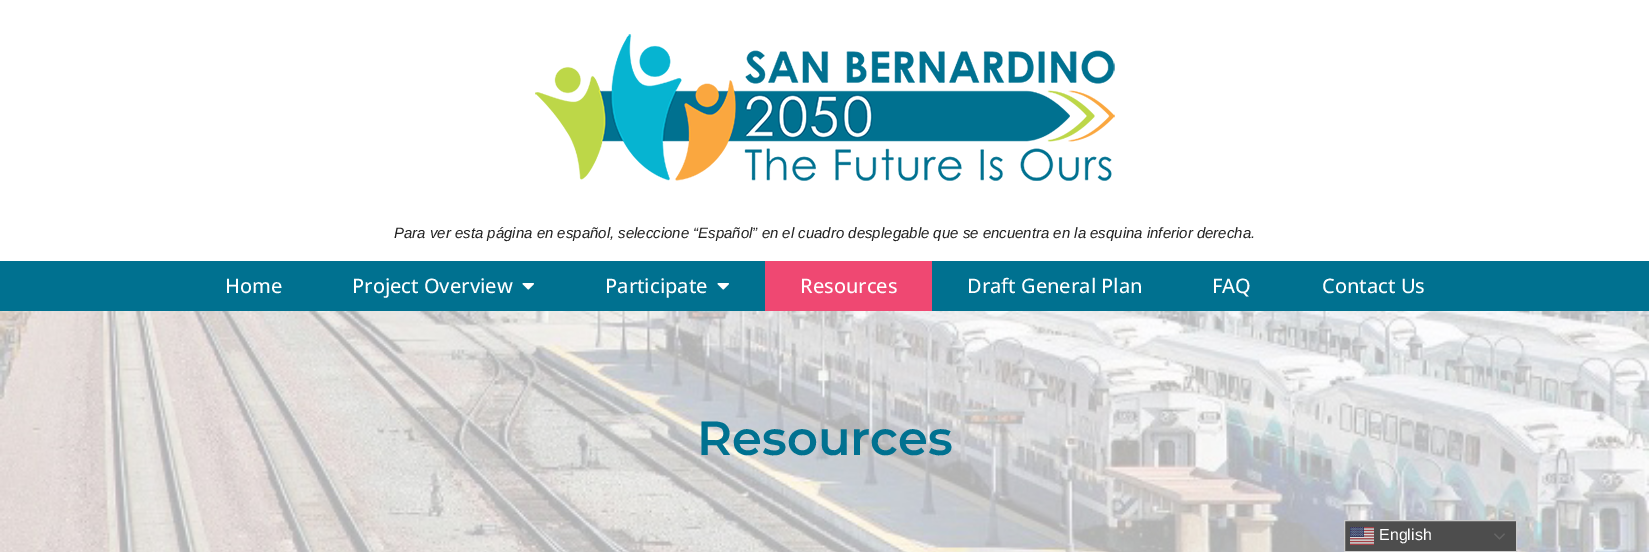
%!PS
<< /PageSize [1649 552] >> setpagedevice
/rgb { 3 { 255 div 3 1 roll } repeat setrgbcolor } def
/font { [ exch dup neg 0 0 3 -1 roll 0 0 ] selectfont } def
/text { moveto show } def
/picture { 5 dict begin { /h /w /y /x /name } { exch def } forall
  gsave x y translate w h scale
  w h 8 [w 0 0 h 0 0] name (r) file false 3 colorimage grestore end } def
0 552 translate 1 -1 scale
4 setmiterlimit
255 255 255 rgb
0 0 1649 552 rectfill
(img_01.rgb) 535 34 580 147 picture
0 113 144 rgb
0 261 1649 50 rectfill
(img_02.rgb) 522 283 12 7 picture
(img_02.rgb) 717 283 12 7 picture
239 72 114 rgb
765 261 167 50 rectfill
(img_03.rgb) 0 311 1649 241 picture
77 77 77 rgb
1344.5 520.5 moveto 172 0 rlineto 0 31 rlineto -172 0 rlineto closepath gsave fill grestore
204 204 204 rgb
stroke
(img_04.rgb) 1350 527 24 18 picture
(img_05.rgb) 1494 533 11 7 picture
/LiberationSans-Italic 15 font
34 34 34 rgb
(Para ver esta página en español, seleccione “Español” en el cuadro desplegable que se encuentra en la esquina inferior derecha.) 394 238 text
/OpenSans-Medium 20 font
255 255 255 rgb
(Home) 225 293 text
(Project Overview) 352 293 text
(Participate) 605 293 text
(Resources) 800 293 text
(Draft General Plan) 967 293 text
(FAQ) 1212 293 text
(Contact Us) 1322 293 text
/Montserrat-SemiBold 48 font
0 113 144 rgb
(Resources) 697 455 text
/LiberationSans-Regular 16 font
255 255 255 rgb
(English) 1379 540 text
showpage
